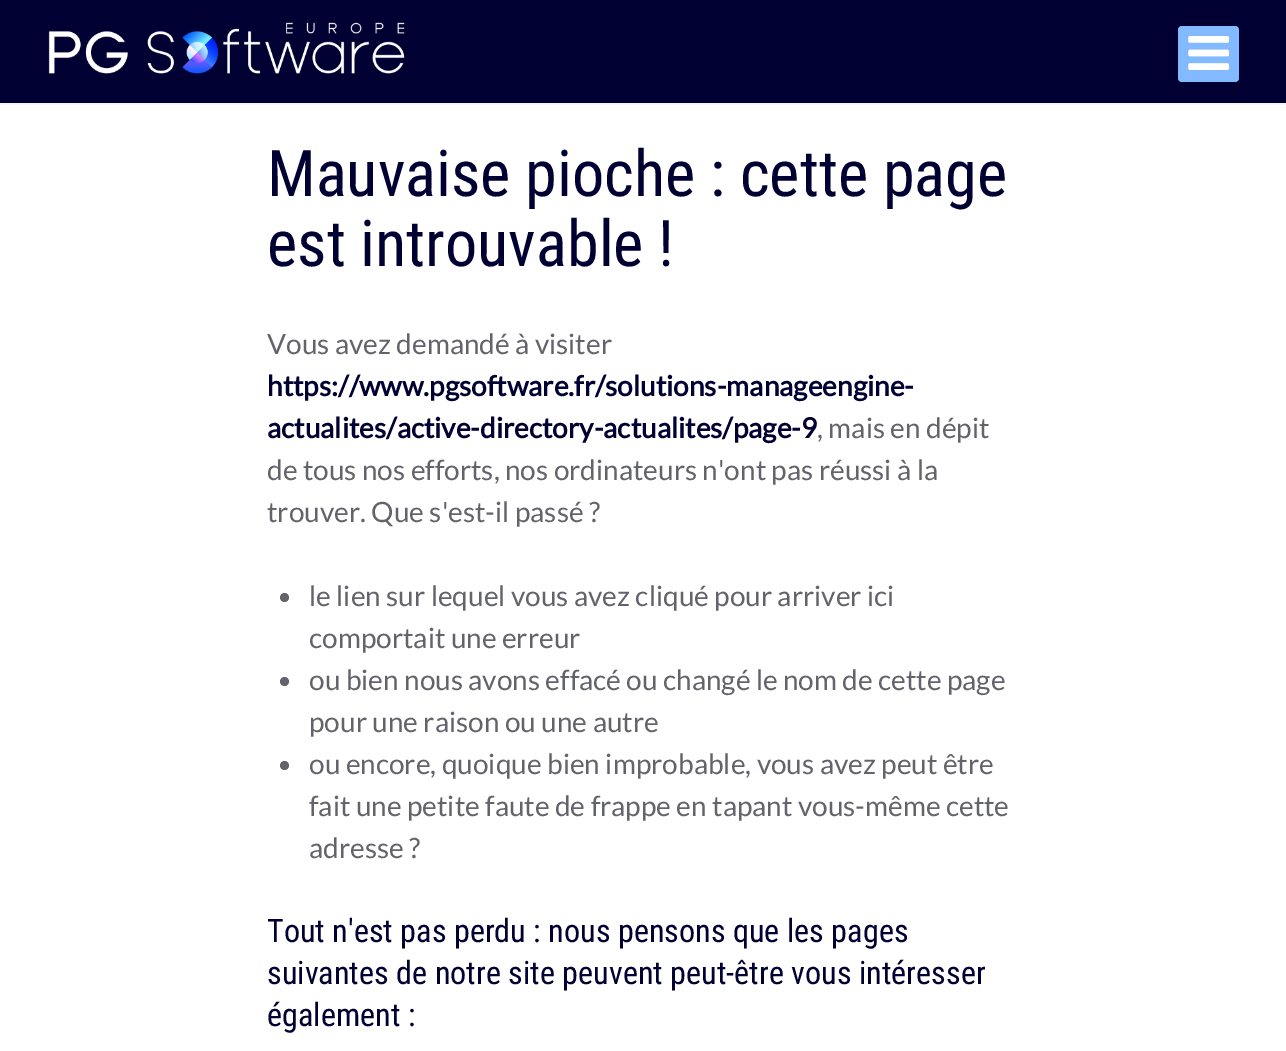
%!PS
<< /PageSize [1286 1051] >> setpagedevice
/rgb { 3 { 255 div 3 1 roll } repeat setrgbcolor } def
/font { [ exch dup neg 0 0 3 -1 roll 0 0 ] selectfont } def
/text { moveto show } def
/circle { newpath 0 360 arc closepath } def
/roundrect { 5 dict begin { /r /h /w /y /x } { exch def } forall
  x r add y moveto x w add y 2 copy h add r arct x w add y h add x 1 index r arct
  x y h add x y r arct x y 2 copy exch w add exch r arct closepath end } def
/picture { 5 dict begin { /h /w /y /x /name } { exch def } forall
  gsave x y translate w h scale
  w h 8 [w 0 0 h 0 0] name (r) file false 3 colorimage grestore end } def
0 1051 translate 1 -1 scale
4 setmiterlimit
255 255 255 rgb
0 0 1286 1051 rectfill
0 0 50 rgb
0 0 1286 103 rectfill
245 245 245 rgb
0 103 1286 2 rectfill
(img_01.rgb) 48 22 357 52 picture
130 185 255 rgb
1178 26 61 56 4 roundrect fill
(img_02.rgb) 1188 36 42 34 picture
99 99 107 rgb
284.5 597.5 4.5 circle fill
284.5 681.5 4.5 circle fill
284.5 765.5 4.5 circle fill
/RobotoCondensed-Regular 64.4 font
0 0 50 rgb
(Mauvaise pioche : cette page) 267 196 text
(est introuvable !) 267 266 text
/Lato-Regular 28 font
99 99 107 rgb
(Vous avez demandé à visiter) 267 354 text
/Lato-Bold 28 font
0 0 50 rgb
(https://www.pgsoftware.fr/solutions-manageengine-) 267 396 text
(actualites/active-directory-actualites/page-9) 267 438 text
/Lato-Regular 28 font
99 99 107 rgb
(, mais en dépit) 817 438 text
(de tous nos efforts, nos ordinateurs n'ont pas réussi à la) 267 480 text
(trouver. Que s'est-il passé ?) 267 522 text
(le lien sur lequel vous avez cliqué pour arriver ici) 309 606 text
(comportait une erreur) 309 648 text
(ou bien nous avons effacé ou changé le nom de cette page) 309 690 text
(pour une raison ou une autre) 309 732 text
(ou encore, quoique bien improbable, vous avez peut être) 309 774 text
(fait une petite faute de frappe en tapant vous-même cette) 309 816 text
(adresse ?) 309 858 text
/RobotoCondensed-Regular 32.2 font
0 0 50 rgb
(Tout n'est pas perdu : nous pensons que les pages) 267 942 text
(suivantes de notre site peuvent peut-être vous intéresser) 267 984 text
(également :) 267 1026 text
showpage
